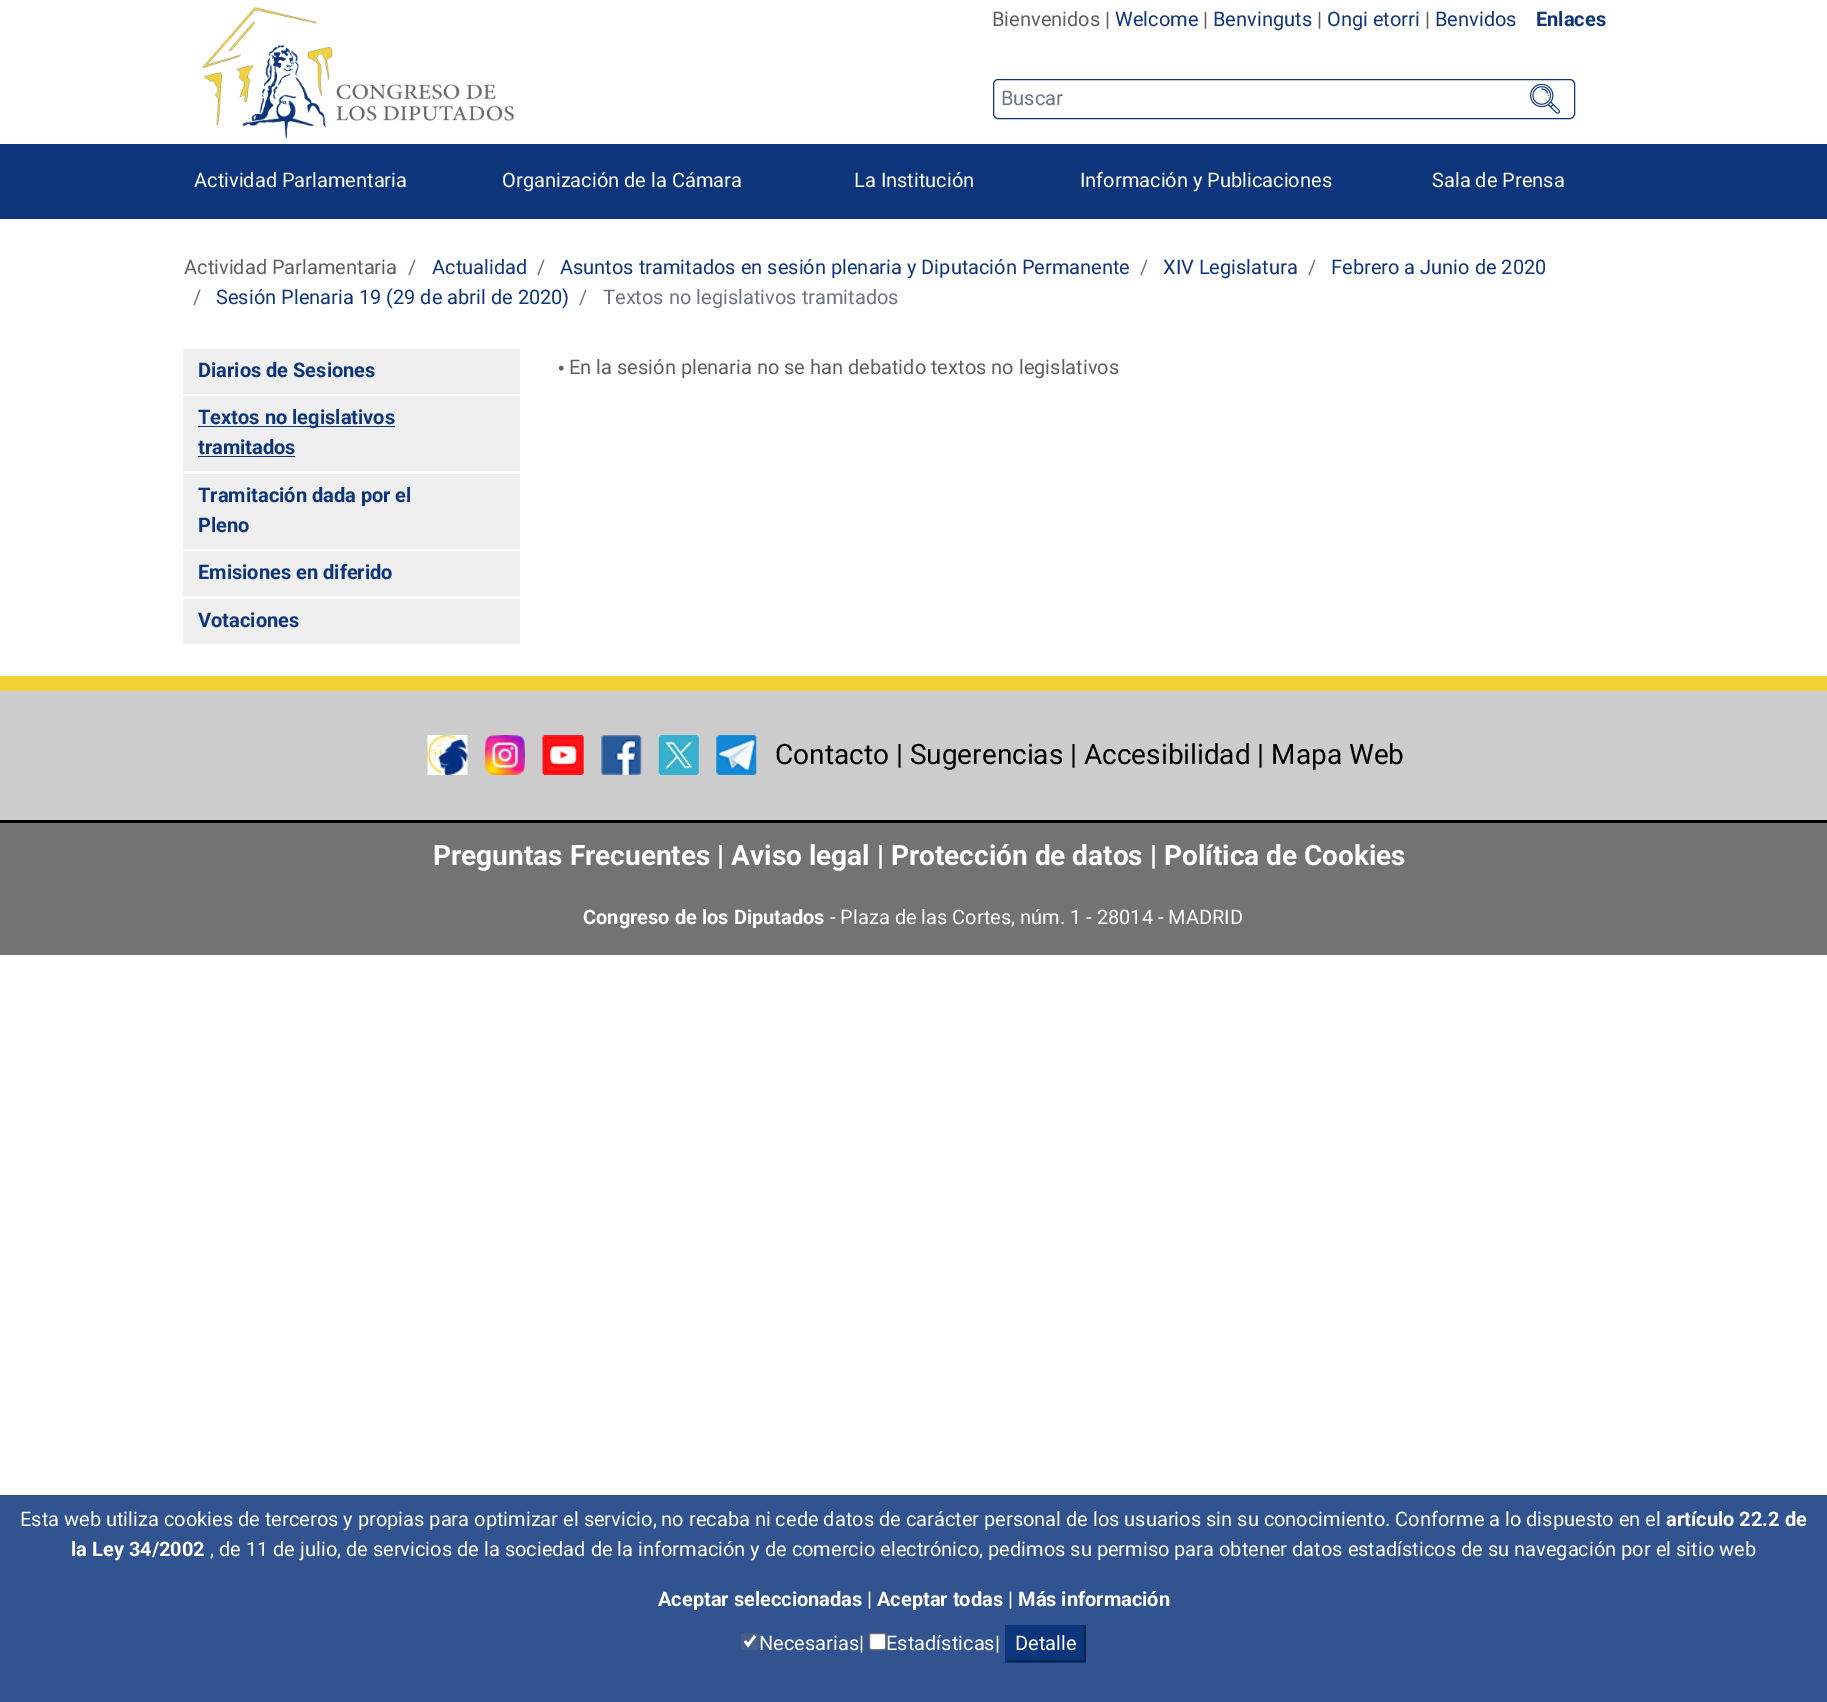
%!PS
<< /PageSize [1827 1702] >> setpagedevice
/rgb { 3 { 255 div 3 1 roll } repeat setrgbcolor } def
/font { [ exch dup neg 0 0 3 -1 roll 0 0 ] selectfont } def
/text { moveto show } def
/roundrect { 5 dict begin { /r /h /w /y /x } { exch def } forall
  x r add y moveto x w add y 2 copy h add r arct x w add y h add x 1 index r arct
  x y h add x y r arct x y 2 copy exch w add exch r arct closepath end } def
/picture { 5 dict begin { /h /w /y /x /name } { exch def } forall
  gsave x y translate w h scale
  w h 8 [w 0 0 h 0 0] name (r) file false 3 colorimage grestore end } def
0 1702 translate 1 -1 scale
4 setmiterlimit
255 255 255 rgb
0 0 1827 1702 rectfill
(img_01.rgb) 202 7 312 132 picture
13 53 123 rgb
993.5 79.5 581 39 4.5 roundrect stroke
(img_02.rgb) 1530 84 30 30 picture
0 144 1827 75 rectfill
239 239 239 rgb
183 349 337 45 rectfill
183 396 337 75 rectfill
13 53 123 rgb
198 426 197 1 rectfill
198 456 97 1 rectfill
239 239 239 rgb
183 474 337 75 rectfill
183 551 337 45 rectfill
183 599 337 45 rectfill
(img_03.rgb) 558 365 6 6 picture
115 115 115 rgb
0 823 1827 132 rectfill
241 209 54 rgb
0 676 1827 15 rectfill
204 204 204 rgb
0 691 1827 129 rectfill
0 0 0 rgb
0 820 1827 3 rectfill
(img_04.rgb) 427 735 41 40 picture
(img_05.rgb) 485 735 40 40 picture
(img_06.rgb) 542 735 42 40 picture
(img_07.rgb) 601 735 41 40 picture
(img_08.rgb) 658 735 41 40 picture
(img_09.rgb) 716 735 41 40 picture
49 83 143 rgb
0 1495 1827 207 rectfill
70 94 136 rgb
741 1633 18 17 2.5 roundrect fill
255 255 255 rgb
2.8 setlinewidth
745 1641 moveto 3 4 rlineto 7 -9 rlineto stroke
869.5 1633.5 16 16 2 roundrect gsave fill grestore
118 118 118 rgb
1 setlinewidth
stroke
13 53 123 rgb
1005 1625 81 38 rectfill
9 35 82 rgb
1086 1625 moveto 0 37.5 rlineto -2 -2.5 rlineto 0 -32.5 rlineto closepath fill
1086 1662 moveto -81 0 rlineto 3 -2 rlineto 76 0 rlineto closepath fill
13 53 123 rgb
1005 1662.5 moveto 0 -37.5 rlineto 2.5 2.5 rlineto 0 32.5 rlineto closepath fill
/Roboto-Regular 20 font
94 94 94 rgb
(Bienvenidos |) 992 26 text
13 53 123 rgb
(Welcome) 1115 26 text
94 94 94 rgb
(|) 1203 26 text
13 53 123 rgb
(Benvinguts) 1213 26 text
94 94 94 rgb
(|) 1317 26 text
13 53 123 rgb
(Ongi etorri) 1327 26 text
94 94 94 rgb
(|) 1425 26 text
13 53 123 rgb
(Benvidos) 1435 26 text
/Roboto-Bold 20 font
(Enlaces) 1536 26 text
/Roboto-Regular 20 font
108 117 125 rgb
(Buscar) 1001 105 text
255 255 255 rgb
(Actividad Parlamentaria) 194 187 text
(Organización de la Cámara) 502 187 text
(La Institución) 854 187 text
(Información y Publicaciones) 1080 187 text
(Sala de Prensa) 1432 187 text
94 94 94 rgb
(Actividad Parlamentaria) 184 274 text
108 117 125 rgb
(/) 408 274 text
13 53 123 rgb
(Actualidad) 432 274 text
108 117 125 rgb
(/) 537 274 text
13 53 123 rgb
(Asuntos tramitados en sesión plenaria y Diputación Permanente) 560 274 text
108 117 125 rgb
(/) 1140 274 text
13 53 123 rgb
(XIV Legislatura) 1163 274 text
108 117 125 rgb
(/) 1308 274 text
13 53 123 rgb
(Febrero a Junio de 2020) 1331 274 text
108 117 125 rgb
(/) 193 304 text
13 53 123 rgb
(Sesión Plenaria 19 \(29 de abril de 2020\)) 216 304 text
108 117 125 rgb
(/) 579 304 text
(Textos no legislativos tramitados) 603 304 text
/Roboto-Bold 20 font
13 53 123 rgb
(Diarios de Sesiones) 198 377 text
(Textos no legislativos) 198 424 text
(tramitados) 198 454 text
(Tramitación dada por el) 198 502 text
(Pleno) 198 532 text
(Emisiones en diferido) 198 579 text
(Votaciones) 198 627 text
/Roboto-Regular 20 font
94 94 94 rgb
(En la sesión plenaria no se han debatido textos no legislativos) 569 374 text
/Roboto-Regular 28 font
0 0 0 rgb
(Contacto | Sugerencias | Accesibilidad | Mapa Web) 775 764 text
/Roboto-Bold 28 font
255 255 255 rgb
(Preguntas Frecuentes | Aviso legal | Protección de datos | Política de Cookies) 433 865 text
/Roboto-Bold 20 font
(Congreso de los Diputados) 583 924 text
/Roboto-Regular 20 font
(- Plaza de las Cortes, núm. 1 - 28014 - MADRID) 830 924 text
(Esta web utiliza cookies de terceros y propias para optimizar el servicio, no recaba ni cede datos de carácter personal de los usuarios sin su conocimiento. Conforme a lo dispuesto en el) 20 1526 text
/Roboto-Bold 20 font
(artículo 22.2 de) 1666 1526 text
(la Ley 34/2002) 71 1556 text
/Roboto-Regular 20 font
(, de 11 de julio, de servicios de la sociedad de la información y de comercio electrónico, pedimos su permiso para obtener datos estadísticos de su navegación por el sitio web) 210 1556 text
/Roboto-Bold 20 font
(Aceptar seleccionadas) 658 1606 text
/Roboto-Regular 20 font
(|) 867 1606 text
/Roboto-Bold 20 font
(Aceptar todas) 877 1606 text
/Roboto-Regular 20 font
(|) 1008 1606 text
/Roboto-Bold 20 font
(Más información) 1018 1606 text
/Roboto-Regular 20 font
(Necesarias|) 759 1650 text
(Estadísticas|) 886 1650 text
(Detalle) 1015 1650 text
showpage
